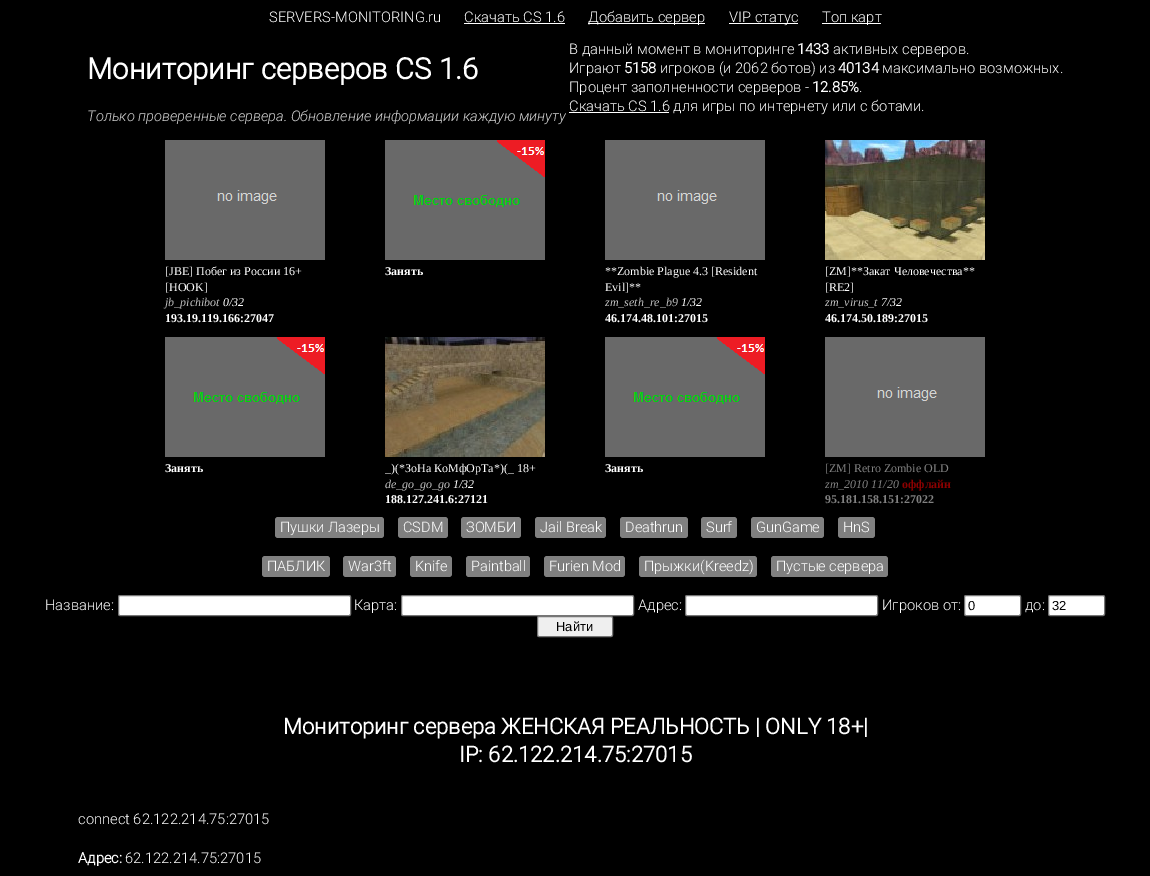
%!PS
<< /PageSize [1150 876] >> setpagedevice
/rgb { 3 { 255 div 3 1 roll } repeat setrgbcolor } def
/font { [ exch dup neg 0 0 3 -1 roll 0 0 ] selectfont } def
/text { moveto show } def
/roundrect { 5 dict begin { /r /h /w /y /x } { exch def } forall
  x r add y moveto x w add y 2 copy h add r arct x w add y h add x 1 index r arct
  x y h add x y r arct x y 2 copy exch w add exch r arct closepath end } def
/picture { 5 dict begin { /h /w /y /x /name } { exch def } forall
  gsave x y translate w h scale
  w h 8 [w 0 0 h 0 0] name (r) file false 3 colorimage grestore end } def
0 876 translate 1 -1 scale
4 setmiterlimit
0 0 0 rgb
0 0 1150 876 rectfill
255 255 255 rgb
464 23 101 1 rectfill
588 23 117 1 rectfill
729 23 69 1 rectfill
822 23 59 1 rectfill
569 112 100 1 rectfill
(img_01.rgb) 165 140 160 120 picture
(img_02.rgb) 385 140 160 120 picture
(img_01.rgb) 605 140 160 120 picture
(img_03.rgb) 825 140 160 120 picture
(img_02.rgb) 165 337 160 120 picture
(img_04.rgb) 385 337 160 120 picture
(img_02.rgb) 605 337 160 120 picture
(img_01.rgb) 825 337 160 120 picture
128 128 128 rgb
275 517 109 21 3 roundrect fill
398 517 50 21 3 roundrect fill
461 517 60 21 3 roundrect fill
535 517 71 21 3 roundrect fill
620 517 68 21 3 roundrect fill
701 517 36 21 3 roundrect fill
751 517 73 21 3 roundrect fill
838 517 37 21 3 roundrect fill
262 556 68 21 3 roundrect fill
343 556 53 21 3 roundrect fill
410 556 42 21 3 roundrect fill
466 556 64 21 3 roundrect fill
544 556 81 21 3 roundrect fill
639 556 118 21 3 roundrect fill
771 556 117 21 3 roundrect fill
255 255 255 rgb
118.5 595.5 232 20 1.5 roundrect gsave fill grestore
118 118 118 rgb
stroke
255 255 255 rgb
401.5 595.5 232 20 1.5 roundrect gsave fill grestore
118 118 118 rgb
stroke
255 255 255 rgb
685.5 595.5 192 20 1.5 roundrect gsave fill grestore
118 118 118 rgb
stroke
255 255 255 rgb
964.5 595.5 56 20 1.5 roundrect gsave fill grestore
118 118 118 rgb
stroke
255 255 255 rgb
1048.5 595.5 56 20 1.5 roundrect gsave fill grestore
118 118 118 rgb
stroke
239 239 239 rgb
537.5 616.5 75 20 1.5 roundrect gsave fill grestore
118 118 118 rgb
stroke
/Roboto-Light 14.7 font
255 255 255 rgb
(SERVERS-MONITORING.ru) 269 22 text
(Скачать CS 1.6) 464 22 text
(Добавить сервер) 588 22 text
(VIP статус) 729 22 text
(Топ карт) 822 22 text
/Roboto-Bold 29.3 font
(Мониторинг серверов CS 1.6) 87 79 text
/Roboto-LightItalic 14.7 font
211 211 211 rgb
(Только проверенные сервера. Обновление информации каждую минуту) 87 121 text
/Roboto-Light 14.7 font
255 255 255 rgb
(В данный момент в мониторинге) 569 54 text
/Roboto-Bold 14.7 font
(1433) 797 54 text
/Roboto-Light 14.7 font
(активных серверов.) 833 54 text
(Играют) 569 73 text
/Roboto-Bold 14.7 font
(5158) 624 73 text
/Roboto-Light 14.7 font
(игроков \(и 2062 ботов\) из) 660 73 text
/Roboto-Bold 14.7 font
(40134) 838 73 text
/Roboto-Light 14.7 font
(максимально возможных.) 882 73 text
(Процент заполненности серверов -) 569 92 text
/Roboto-Bold 14.7 font
(12.85%) 812 92 text
/Roboto-Light 14.7 font
(.) 859 92 text
(Скачать CS 1.6 для игры по интернету или с ботами.) 569 111 text
/LiberationSerif-Regular 12 font
([JBE] Побег из России 16+) 165 275 text
([HOOK]) 165 291 text
/LiberationSerif-Italic 12 font
192 192 192 rgb
(jb_pichibot) 165 306 text
255 255 255 rgb
(0/32) 223 306 text
/LiberationSerif-Bold 12 font
(193.19.119.166:27047) 165 322 text
(Занять) 385 275 text
/LiberationSerif-Regular 12 font
(**Zombie Plague 4.3 [Resident) 605 275 text
(Evil]**) 605 291 text
/LiberationSerif-Italic 12 font
192 192 192 rgb
(zm_seth_re_b9) 605 306 text
255 255 255 rgb
(1/32) 681 306 text
/LiberationSerif-Bold 12 font
(46.174.48.101:27015) 605 322 text
/LiberationSerif-Regular 12 font
([ZM]**Закат Человечества**) 825 275 text
([RE2]) 825 291 text
/LiberationSerif-Italic 12 font
192 192 192 rgb
(zm_virus_t) 825 306 text
255 255 255 rgb
(7/32) 881 306 text
/LiberationSerif-Bold 12 font
(46.174.50.189:27015) 825 322 text
(Занять) 165 472 text
/LiberationSerif-Regular 12 font
(_\)\(*ЗоНа КоМфОрТа*\)\(_ 18+) 385 472 text
/LiberationSerif-Italic 12 font
192 192 192 rgb
(de_go_go_go) 385 488 text
255 255 255 rgb
(1/32) 453 488 text
/LiberationSerif-Bold 12 font
(188.127.241.6:27121) 385 503 text
(Занять) 605 472 text
/LiberationSerif-Regular 12 font
128 128 128 rgb
([ZM] Retro Zombie OLD) 825 472 text
/LiberationSerif-Italic 12 font
(zm_2010 11/20) 825 488 text
/LiberationSerif-Bold 12 font
139 0 0 rgb
(оффлайн) 902 488 text
128 128 128 rgb
(95.181.158.151:27022) 825 503 text
/Roboto-Light 14.5 font
255 255 255 rgb
(Пушки Лазеры) 280 532 text
(CSDM) 403 532 text
(ЗОМБИ) 466 532 text
(Jail Break) 540 532 text
(Deathrun) 625 532 text
(Surf) 706 532 text
(GunGame) 756 532 text
(HnS) 843 532 text
(ПАБЛИК) 267 571 text
(War3ft) 348 571 text
(Knife) 415 571 text
(Paintball) 471 571 text
(Furien Mod) 549 571 text
(Прыжки\(Kreedz\)) 644 571 text
(Пустые сервера) 776 571 text
/Roboto-Light 14.7 font
(Название:) 45 610 text
(Карта:) 354 610 text
(Адрес:) 638 610 text
(Игроков от:) 882 610 text
/LiberationSans-Regular 13 font
0 0 0 rgb
(0) 968 610 text
/Roboto-Light 14.7 font
255 255 255 rgb
(до:) 1025 610 text
/LiberationSans-Regular 13 font
0 0 0 rgb
(32) 1052 610 text
(Найти) 556 631 text
/Roboto-Bold 22 font
255 255 255 rgb
(Мониторинг сервера ЖЕНСКАЯ РЕАЛЬНОСТЬ | ONLY 18+|) 283 734 text
(IP: 62.122.214.75:27015) 459 762 text
/Roboto-Light 14.7 font
(connect 62.122.214.75:27015) 78 824 text
/Roboto-Bold 14.7 font
(Адрес:) 78 863 text
/Roboto-Light 14.7 font
(62.122.214.75:27015) 125 863 text
showpage
